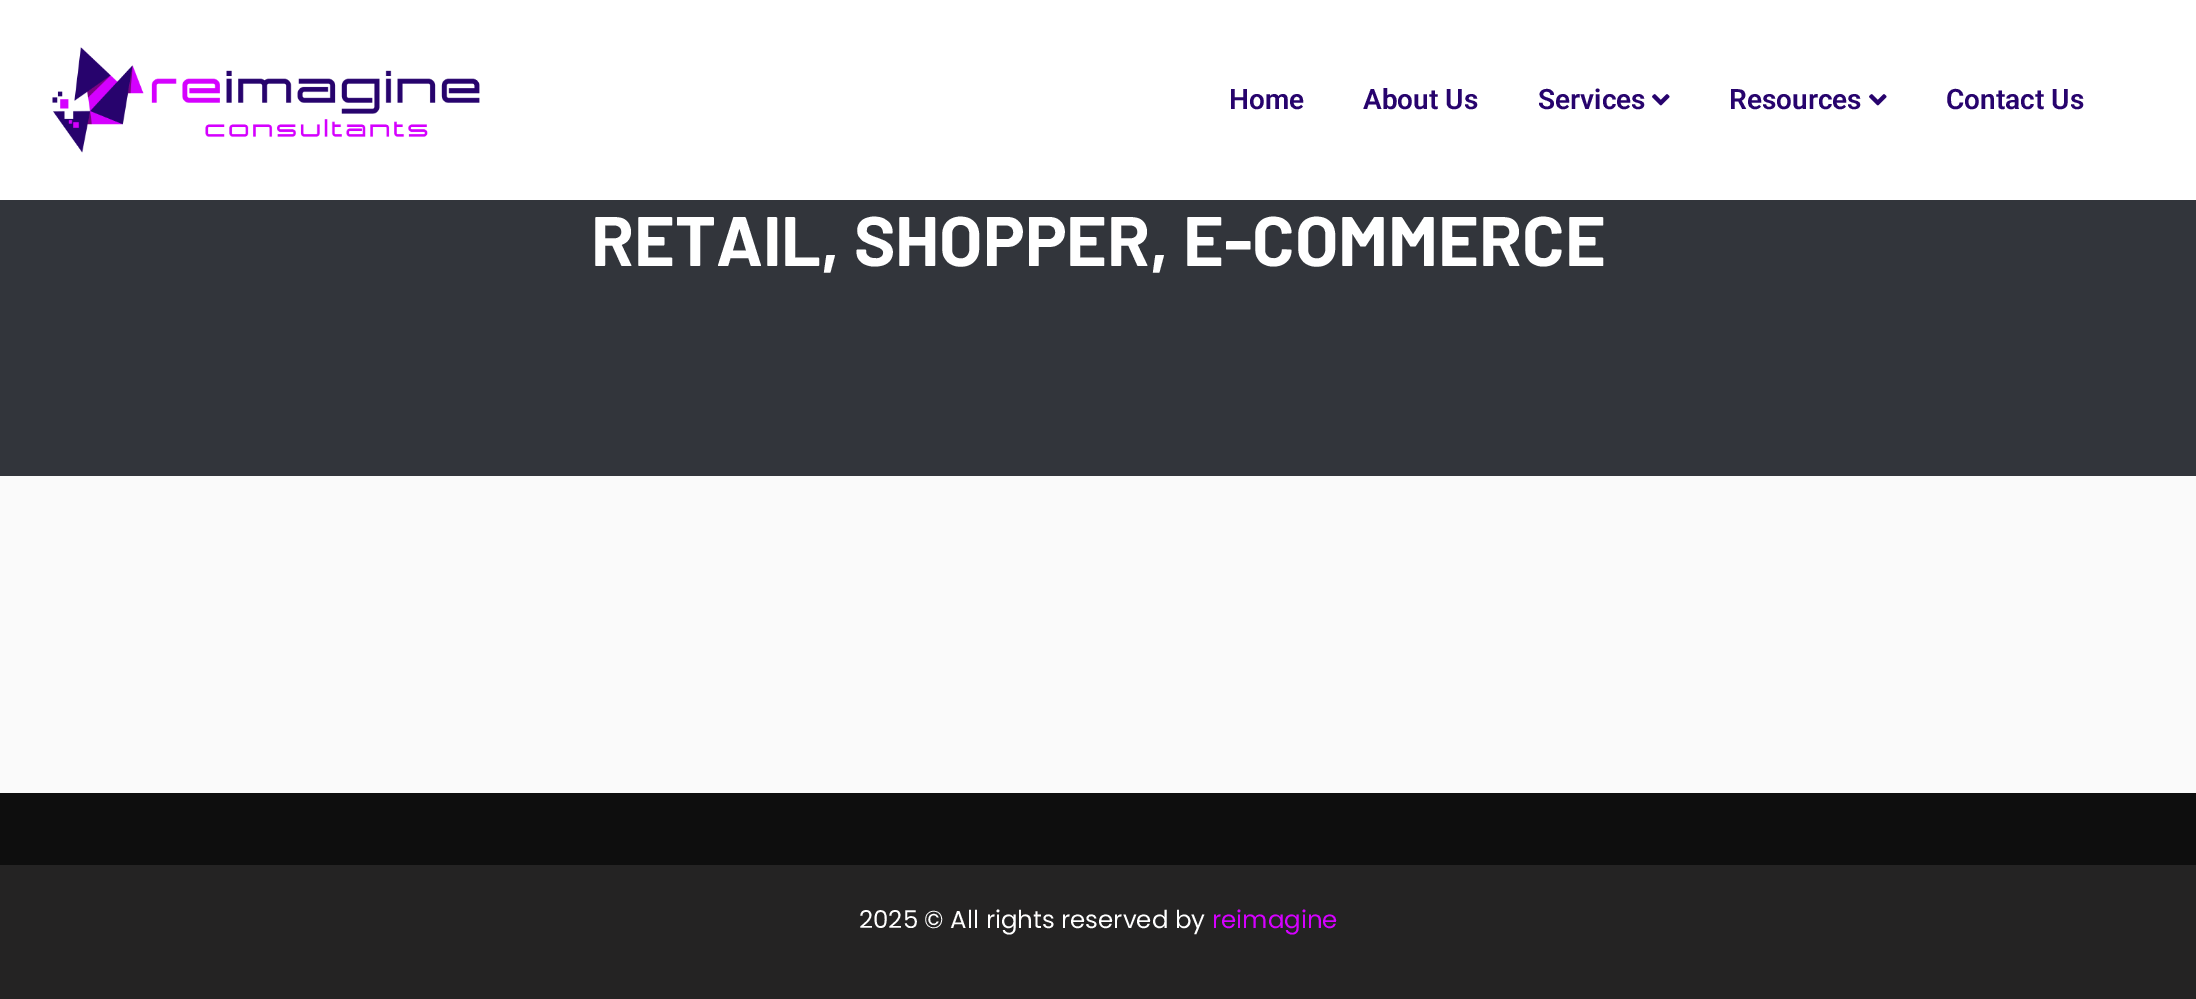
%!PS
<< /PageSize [2196 999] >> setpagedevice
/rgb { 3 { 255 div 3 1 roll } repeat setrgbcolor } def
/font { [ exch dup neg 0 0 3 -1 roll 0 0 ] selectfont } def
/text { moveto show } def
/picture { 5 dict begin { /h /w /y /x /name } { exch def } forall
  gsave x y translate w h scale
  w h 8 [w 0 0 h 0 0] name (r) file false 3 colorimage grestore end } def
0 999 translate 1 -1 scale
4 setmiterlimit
14 14 14 rgb
0 0 2196 999 rectfill
255 255 255 rgb
0 0 2196 200 rectfill
(img_01.rgb) 52 47 428 106 picture
(img_02.rgb) 1652 94 18 12 picture
(img_02.rgb) 1869 94 18 12 picture
50 53 59 rgb
0 200 2196 276 rectfill
250 250 250 rgb
0 476 2196 317 rectfill
36 35 35 rgb
0 865 2196 134 rectfill
/Roboto-SemiBold 28 font
39 3 109 rgb
(Home) 1229 109 text
(About Us) 1363 109 text
(Services) 1538 109 text
(Resources) 1729 109 text
(Contact Us) 1946 109 text
/Barlow-Bold 70 font
255 255 255 rgb
(RETAIL, SHOPPER, E-COMMERCE) 591 266 text
/Poppins-Regular 24.5 font
(2025 © All rights reserved by) 859 928 text
213 0 255 rgb
(reimagine) 1212 928 text
showpage
